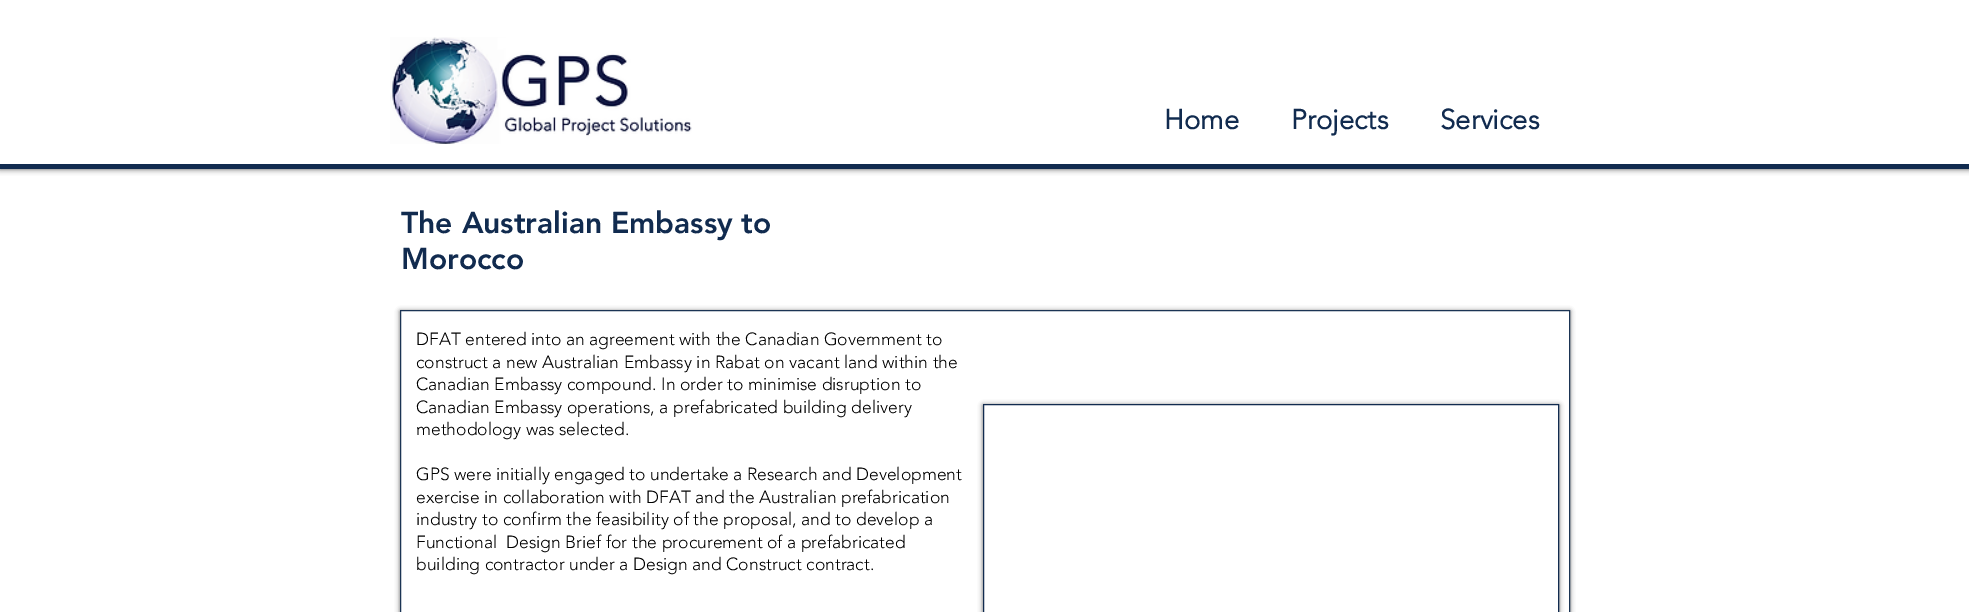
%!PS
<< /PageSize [1969 612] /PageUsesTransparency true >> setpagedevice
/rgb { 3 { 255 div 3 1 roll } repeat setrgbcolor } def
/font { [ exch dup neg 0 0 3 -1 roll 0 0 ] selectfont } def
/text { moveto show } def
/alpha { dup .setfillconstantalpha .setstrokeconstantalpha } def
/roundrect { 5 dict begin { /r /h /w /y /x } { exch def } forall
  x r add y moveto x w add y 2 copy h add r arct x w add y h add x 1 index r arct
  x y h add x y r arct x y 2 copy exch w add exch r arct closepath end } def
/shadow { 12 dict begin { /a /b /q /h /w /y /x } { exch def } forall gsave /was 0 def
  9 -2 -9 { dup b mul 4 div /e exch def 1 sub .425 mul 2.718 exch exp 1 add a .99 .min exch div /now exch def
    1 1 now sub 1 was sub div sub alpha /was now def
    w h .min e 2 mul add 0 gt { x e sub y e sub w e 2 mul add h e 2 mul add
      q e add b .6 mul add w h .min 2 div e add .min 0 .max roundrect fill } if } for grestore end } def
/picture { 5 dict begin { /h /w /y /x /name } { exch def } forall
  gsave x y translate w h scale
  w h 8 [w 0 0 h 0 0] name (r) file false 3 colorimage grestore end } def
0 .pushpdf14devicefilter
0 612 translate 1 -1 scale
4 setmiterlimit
255 255 255 rgb
0 0 1969 612 rectfill
0 0 0 rgb
0 0 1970 169 0 3 0.7 shadow
255 255 255 rgb
0 0 1969 164 rectfill
17 43 79 rgb
0 164 1969 5 rectfill
(img_01.rgb) 390 37 302 107 picture
gsave
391 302 moveto 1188 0 rlineto 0 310 rlineto -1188 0 rlineto closepath 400 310 moveto 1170 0 rlineto 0 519 rlineto -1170 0 rlineto closepath eoclip newpath
0 0 0 rgb
400 311 1170 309 0 2.5 0.6 shadow
grestore
27 52 84 rgb
400.5 310.5 1169 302 rectstroke
gsave
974 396 moveto 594 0 rlineto 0 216 rlineto -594 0 rlineto closepath 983 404 moveto 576 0 rlineto 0 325 rlineto -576 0 rlineto closepath eoclip newpath
0 0 0 rgb
983 405 576 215 0 2.5 0.6 shadow
grestore
17 43 79 rgb
983.5 404.5 575 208 rectstroke
/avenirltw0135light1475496-Bold 27.5 font
(Home) 1164 129 text
(Projects) 1291 129 text
(Services) 1440 129 text
/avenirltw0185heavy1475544-Black 30 font
(The Australian Embassy to) 401 233 text
(Morocco) 401 269 text
/avenirltw0135light1475496-Light 17.5 font
0 0 0 rgb
(DFAT entered into an agreement with the Canadian Government to) 416 345 text
(construct a new Australian Embassy in Rabat on vacant land within the) 416 368 text
(Canadian Embassy compound. In order to minimise disruption to) 416 390 text
(Canadian Embassy operations, a prefabricated building delivery) 416 413 text
(methodology was selected.) 416 435 text
(GPS were initially engaged to undertake a Research and Development) 416 480 text
(exercise in collaboration with DFAT and the Australian prefabrication) 416 503 text
(industry to confirm the feasibility of the proposal, and to develop a) 416 525 text
(Functional  Design Brief for the procurement of a prefabricated) 416 548 text
(building contractor under a Design and Construct contract.) 416 570 text
.poppdf14devicefilter showpage
